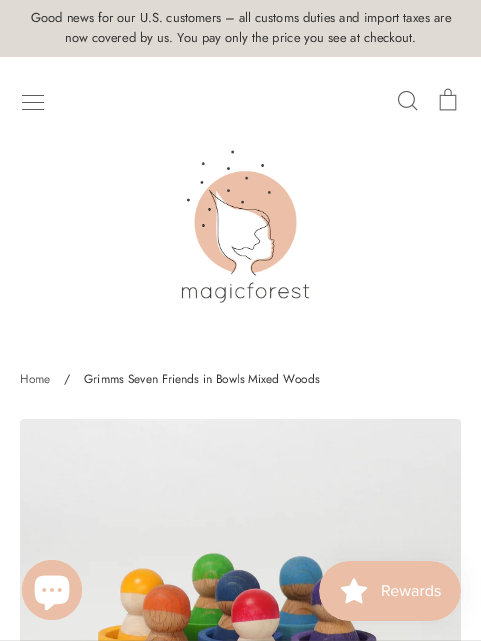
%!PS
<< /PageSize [481 641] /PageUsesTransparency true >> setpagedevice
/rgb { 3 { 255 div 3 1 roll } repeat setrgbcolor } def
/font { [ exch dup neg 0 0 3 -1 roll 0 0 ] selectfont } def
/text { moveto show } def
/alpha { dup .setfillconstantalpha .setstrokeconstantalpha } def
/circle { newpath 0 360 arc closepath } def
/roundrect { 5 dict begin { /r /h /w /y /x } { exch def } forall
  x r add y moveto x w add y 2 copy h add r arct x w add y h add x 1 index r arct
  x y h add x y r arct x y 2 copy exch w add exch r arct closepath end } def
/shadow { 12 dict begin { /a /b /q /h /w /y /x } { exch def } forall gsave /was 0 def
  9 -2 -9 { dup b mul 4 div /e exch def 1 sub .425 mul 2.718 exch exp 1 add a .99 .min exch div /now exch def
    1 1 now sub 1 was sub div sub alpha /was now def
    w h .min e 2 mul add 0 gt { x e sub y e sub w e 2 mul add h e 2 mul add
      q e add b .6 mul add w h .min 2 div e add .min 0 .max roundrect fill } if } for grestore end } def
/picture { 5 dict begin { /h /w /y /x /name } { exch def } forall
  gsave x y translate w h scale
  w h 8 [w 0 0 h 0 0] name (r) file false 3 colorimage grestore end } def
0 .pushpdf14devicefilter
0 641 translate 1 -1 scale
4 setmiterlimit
255 255 255 rgb
0 0 481 641 rectfill
223 218 211 rgb
0 0 481 57 rectfill
92 92 92 rgb
22 95 22 1 rectfill
22 102 22 1 rectfill
22 109 22 1 rectfill
(img_01.rgb) 398 91 20 20 picture
(img_02.rgb) 439 88 18 23 picture
(img_03.rgb) 181 150 129 153 picture
(img_04.rgb) 20 419 441 222 picture
0.15 alpha
0 640 481 1 rectfill
1 alpha
235 191 167 rgb
52 590 30 circle fill
(img_05.rgb) 34 575 36 36 picture
0 0 0 rgb
319 561 142 60 30 12.5 0.05 shadow
(img_06.rgb) 319 561 142 60 picture
/Jost-Regular 13 font
51 51 51 rgb
(Good news for our U.S. customers – all customs duties and import taxes are) 31 22 text
(now covered by us. You pay only the price you see at checkout.) 65 42 text
/Jost-Regular 12 font
92 92 92 rgb
(Home) 20 383 text
51 51 51 rgb
(/) 64 383 text
(Grimms Seven Friends in Bowls Mixed Woods) 84 383 text
.poppdf14devicefilter showpage
